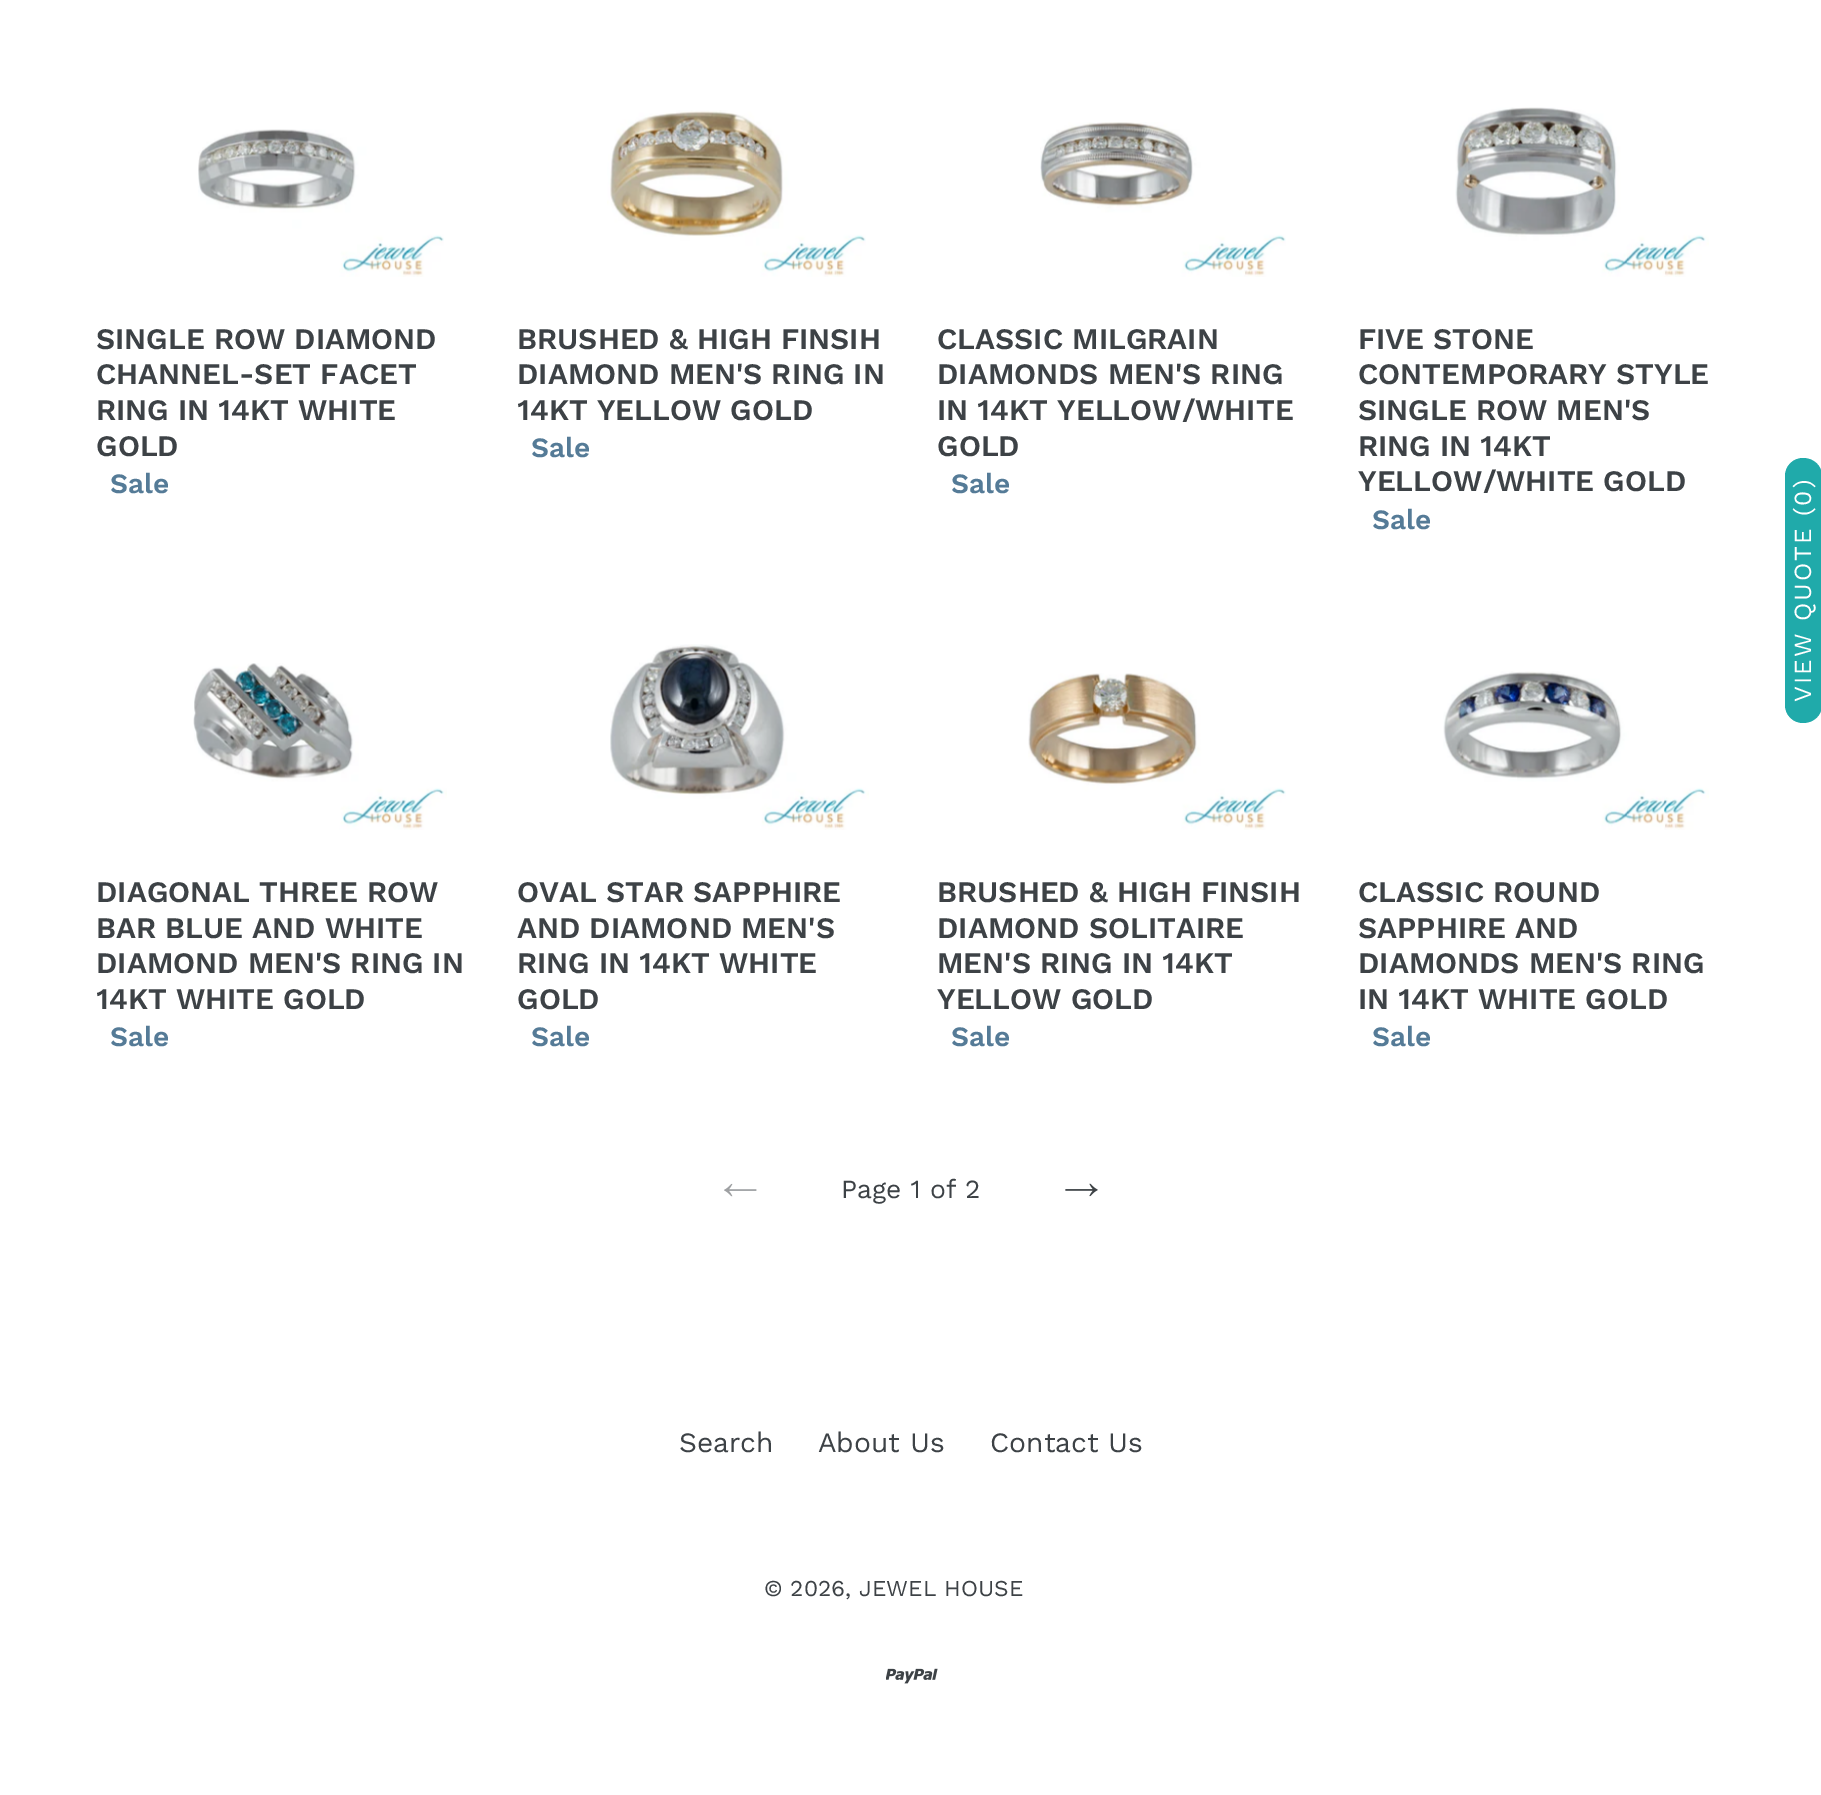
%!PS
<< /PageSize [1821 1795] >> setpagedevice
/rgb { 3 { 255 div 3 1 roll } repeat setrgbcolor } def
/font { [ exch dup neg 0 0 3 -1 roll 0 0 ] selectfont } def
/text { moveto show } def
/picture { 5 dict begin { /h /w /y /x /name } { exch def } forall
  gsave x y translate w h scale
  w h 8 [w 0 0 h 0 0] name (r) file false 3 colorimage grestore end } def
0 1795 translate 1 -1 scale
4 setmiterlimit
255 255 255 rgb
0 0 1821 1795 rectfill
(img_01.rgb) 198 129 246 148 picture
(img_02.rgb) 607 110 259 167 picture
(img_03.rgb) 1040 122 246 155 picture
(img_04.rgb) 1455 107 254 170 picture
(img_05.rgb) 193 663 254 167 picture
(img_06.rgb) 610 644 259 186 picture
(img_07.rgb) 1028 673 258 157 picture
(img_08.rgb) 1443 671 266 159 picture
(img_09.rgb) 724 1183 33 14 picture
(img_10.rgb) 1065 1183 33 14 picture
(img_11.rgb) 886 1668 52 16 picture
32 170 170 rgb
1785 705 moveto 0 -229 rlineto 0 -10 8 -18 18 -18 rcurveto 11 0 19 8 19 18 rcurveto 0 229 rlineto 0 10 -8 18 -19 18 rcurveto -10 0 -18 -8 -18 -18 rcurveto closepath fill
/WorkSans-SemiBold 29.75 font
61 66 70 rgb
(SINGLE ROW DIAMOND) 96 349 text
(CHANNEL-SET FACET) 96 384 text
(RING IN 14KT WHITE) 96 420 text
(GOLD) 96 456 text
/WorkSans-SemiBold 28 font
85 123 151 rgb
(Sale) 110 493 text
/WorkSans-SemiBold 29.75 font
61 66 70 rgb
(BRUSHED & HIGH FINSIH) 517 349 text
(DIAMOND MEN'S RING IN) 517 384 text
(14KT YELLOW GOLD) 517 420 text
/WorkSans-SemiBold 28 font
85 123 151 rgb
(Sale) 531 457 text
/WorkSans-SemiBold 29.75 font
61 66 70 rgb
(CLASSIC MILGRAIN) 937 349 text
(DIAMONDS MEN'S RING) 937 384 text
(IN 14KT YELLOW/WHITE) 937 420 text
(GOLD) 937 456 text
/WorkSans-SemiBold 28 font
85 123 151 rgb
(Sale) 951 493 text
/WorkSans-SemiBold 29.75 font
61 66 70 rgb
(FIVE STONE) 1358 349 text
(CONTEMPORARY STYLE) 1358 384 text
(SINGLE ROW MEN'S) 1358 420 text
(RING IN 14KT) 1358 456 text
(YELLOW/WHITE GOLD) 1358 491 text
/WorkSans-SemiBold 28 font
85 123 151 rgb
(Sale) 1372 529 text
/WorkSans-SemiBold 29.75 font
61 66 70 rgb
(DIAGONAL THREE ROW) 96 902 text
(BAR BLUE AND WHITE) 96 938 text
(DIAMOND MEN'S RING IN) 96 973 text
(14KT WHITE GOLD) 96 1009 text
/WorkSans-SemiBold 28 font
85 123 151 rgb
(Sale) 110 1046 text
/WorkSans-SemiBold 29.75 font
61 66 70 rgb
(OVAL STAR SAPPHIRE) 517 902 text
(AND DIAMOND MEN'S) 517 938 text
(RING IN 14KT WHITE) 517 973 text
(GOLD) 517 1009 text
/WorkSans-SemiBold 28 font
85 123 151 rgb
(Sale) 531 1046 text
/WorkSans-SemiBold 29.75 font
61 66 70 rgb
(BRUSHED & HIGH FINSIH) 937 902 text
(DIAMOND SOLITAIRE) 937 938 text
(MEN'S RING IN 14KT) 937 973 text
(YELLOW GOLD) 937 1009 text
/WorkSans-SemiBold 28 font
85 123 151 rgb
(Sale) 951 1046 text
/WorkSans-SemiBold 29.75 font
61 66 70 rgb
(CLASSIC ROUND) 1358 902 text
(SAPPHIRE AND) 1358 938 text
(DIAMONDS MEN'S RING) 1358 973 text
(IN 14KT WHITE GOLD) 1358 1009 text
/WorkSans-SemiBold 28 font
85 123 151 rgb
(Sale) 1372 1046 text
/WorkSans-Regular 26.25 font
61 66 70 rgb
(Page 1 of 2) 841 1198 text
/WorkSans-Regular 28 font
(Search) 679 1452 text
(About Us) 818 1452 text
(Contact Us) 990 1452 text
/WorkSans-Regular 22.75 font
(© 2026, JEWEL HOUSE) 764 1596 text
/WorkSans-Regular 24.5 font
255 255 255 rgb
gsave 1811 702 translate -90 rotate 0 0 moveto 2 0 (VIEW QUOTE \(0\)) ashow grestore
showpage
